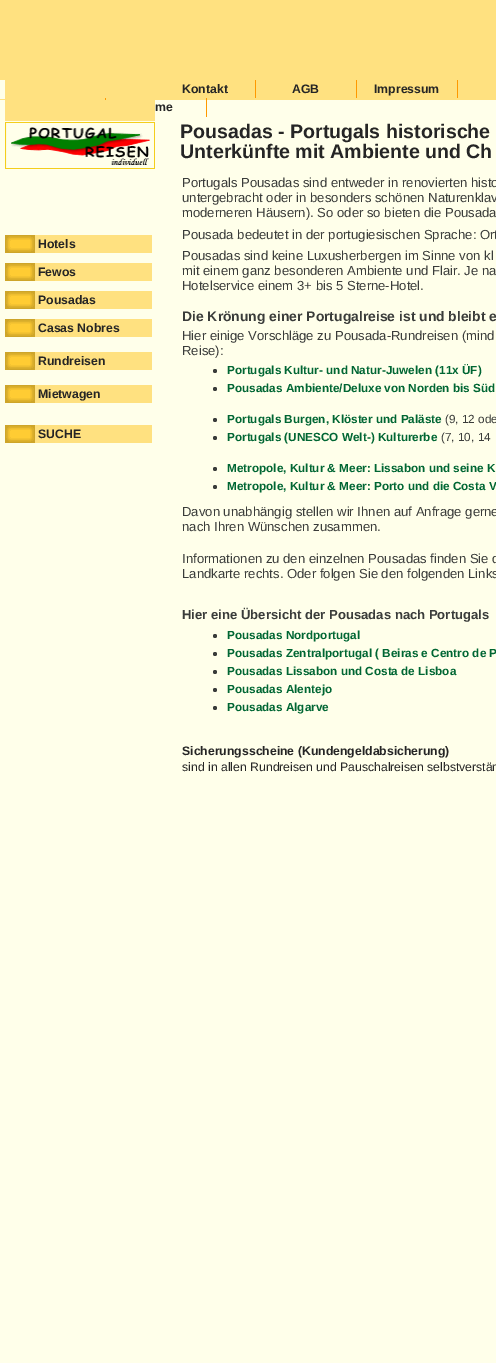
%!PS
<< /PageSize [496 1363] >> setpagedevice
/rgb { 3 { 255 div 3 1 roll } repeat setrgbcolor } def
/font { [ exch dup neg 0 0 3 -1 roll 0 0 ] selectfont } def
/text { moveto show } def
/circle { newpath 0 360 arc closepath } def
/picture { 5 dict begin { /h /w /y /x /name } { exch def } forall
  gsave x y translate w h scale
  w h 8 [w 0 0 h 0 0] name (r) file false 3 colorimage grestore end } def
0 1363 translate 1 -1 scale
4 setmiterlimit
255 255 234 rgb
0 0 496 1363 rectfill
255 225 128 rgb
0 0 496 100 rectfill
255 255 234 rgb
0 80 5 19 rectfill
255 153 0 rgb
255 80 1 18 rectfill
356 80 1 18 rectfill
457 80 1 18 rectfill
105 98 1 2 rectfill
206 98 1 19 rectfill
255 225 128 rgb
5 100 150 21 rectfill
(img_01.rgb) 5 122 150 47 picture
35 235 117 18 rectfill
(img_02.rgb) 5 235 30 18 picture
35 263 117 18 rectfill
(img_02.rgb) 5 263 30 18 picture
35 291 117 18 rectfill
(img_02.rgb) 5 291 30 18 picture
35 319 117 18 rectfill
(img_02.rgb) 5 319 30 18 picture
35 352 117 18 rectfill
(img_02.rgb) 5 352 30 18 picture
35 385 117 18 rectfill
(img_02.rgb) 5 385 30 18 picture
35 425 117 18 rectfill
(img_02.rgb) 5 425 30 18 picture
58 60 58 rgb
215 371 2 circle fill
215 389 2 circle fill
215 420 2 circle fill
215 438 2 circle fill
215 469 2 circle fill
215 487 2 circle fill
215 636 2 circle fill
215 654 2 circle fill
215 672 2 circle fill
215 690 2 circle fill
215 708 2 circle fill
/LiberationSans-Bold 12.25 font
37 37 37 rgb
(Kontakt) 182 93 text
(AGB) 292 93 text
(Impressum) 374 93 text
(me) 155 111 text
(Hotels) 38 248 text
(Fewos) 38 276 text
(Pousadas) 38 304 text
(Casas Nobres) 38 332 text
(Rundreisen) 38 365 text
(Mietwagen) 38 398 text
(SUCHE) 38 438 text
/LiberationSans-Bold 19.6 font
(Pousadas - Portugals historische) 180 138 text
(Unterkünfte mit Ambiente und Ch) 180 158 text
/LiberationSans-Regular 13.1 font
58 60 58 rgb
(Portugals Pousadas sind entweder in renovierten histo) 182 187 text
(untergebracht oder in besonders schönen Naturenklav) 182 202 text
(moderneren Häusern\). So oder so bieten die Pousada) 182 217 text
(Pousada bedeutet in der portugiesischen Sprache: Ort) 182 239 text
(Pousadas sind keine Luxusherbergen im Sinne von kl) 182 260 text
(mit einem ganz besonderen Ambiente und Flair. Je na) 182 275 text
(Hotelservice einem 3+ bis 5 Sterne-Hotel.) 182 290 text
/LiberationSans-Bold 13.9 font
(Die Krönung einer Portugalreise ist und bleibt e) 182 321 text
/LiberationSans-Regular 13.1 font
(Hier einige Vorschläge zu Pousada-Rundreisen \(mind) 182 340 text
(Reise\):) 182 355 text
/LiberationSans-Bold 11.75 font
0 102 51 rgb
(Portugals Kultur- und Natur-Juwelen \(11x ÜF\)) 227 374 text
(Pousadas Ambiente/Deluxe von Norden bis Süd) 227 392 text
(Portugals Burgen, Klöster und Paläste) 227 423 text
/LiberationSans-Regular 11.75 font
58 60 58 rgb
(\(9, 12 ode) 445 423 text
/LiberationSans-Bold 11.75 font
0 102 51 rgb
(Portugals \(UNESCO Welt-\) Kulturerbe) 227 441 text
/LiberationSans-Regular 11.75 font
58 60 58 rgb
(\(7, 10, 14) 441 441 text
/LiberationSans-Bold 11.75 font
0 102 51 rgb
(Metropole, Kultur & Meer: Lissabon und seine K) 227 472 text
(Metropole, Kultur & Meer: Porto und die Costa V) 227 490 text
/LiberationSans-Regular 13.1 font
58 60 58 rgb
(Davon unabhängig stellen wir Ihnen auf Anfrage gerne) 182 516 text
(nach Ihren Wünschen zusammen.) 182 531 text
(Informationen zu den einzelnen Pousadas finden Sie d) 182 563 text
(Landkarte rechts. Oder folgen Sie den folgenden Links) 182 578 text
/LiberationSans-Bold 13.1 font
(Hier eine Übersicht der Pousadas nach Portugals) 182 619 text
/LiberationSans-Bold 11.75 font
0 102 51 rgb
(Pousadas Nordportugal) 227 639 text
(Pousadas Zentralportugal \( Beiras e Centro de P) 227 657 text
(Pousadas Lissabon und Costa de Lisboa) 227 675 text
(Pousadas Alentejo) 227 693 text
(Pousadas Algarve) 227 711 text
/LiberationSans-Bold 12.25 font
37 37 37 rgb
(Sicherungsscheine \(Kundengeldabsicherung\)) 182 755 text
/LiberationSans-Regular 12.25 font
(sind in allen Rundreisen und Pauschalreisen selbstverstän) 182 771 text
showpage
